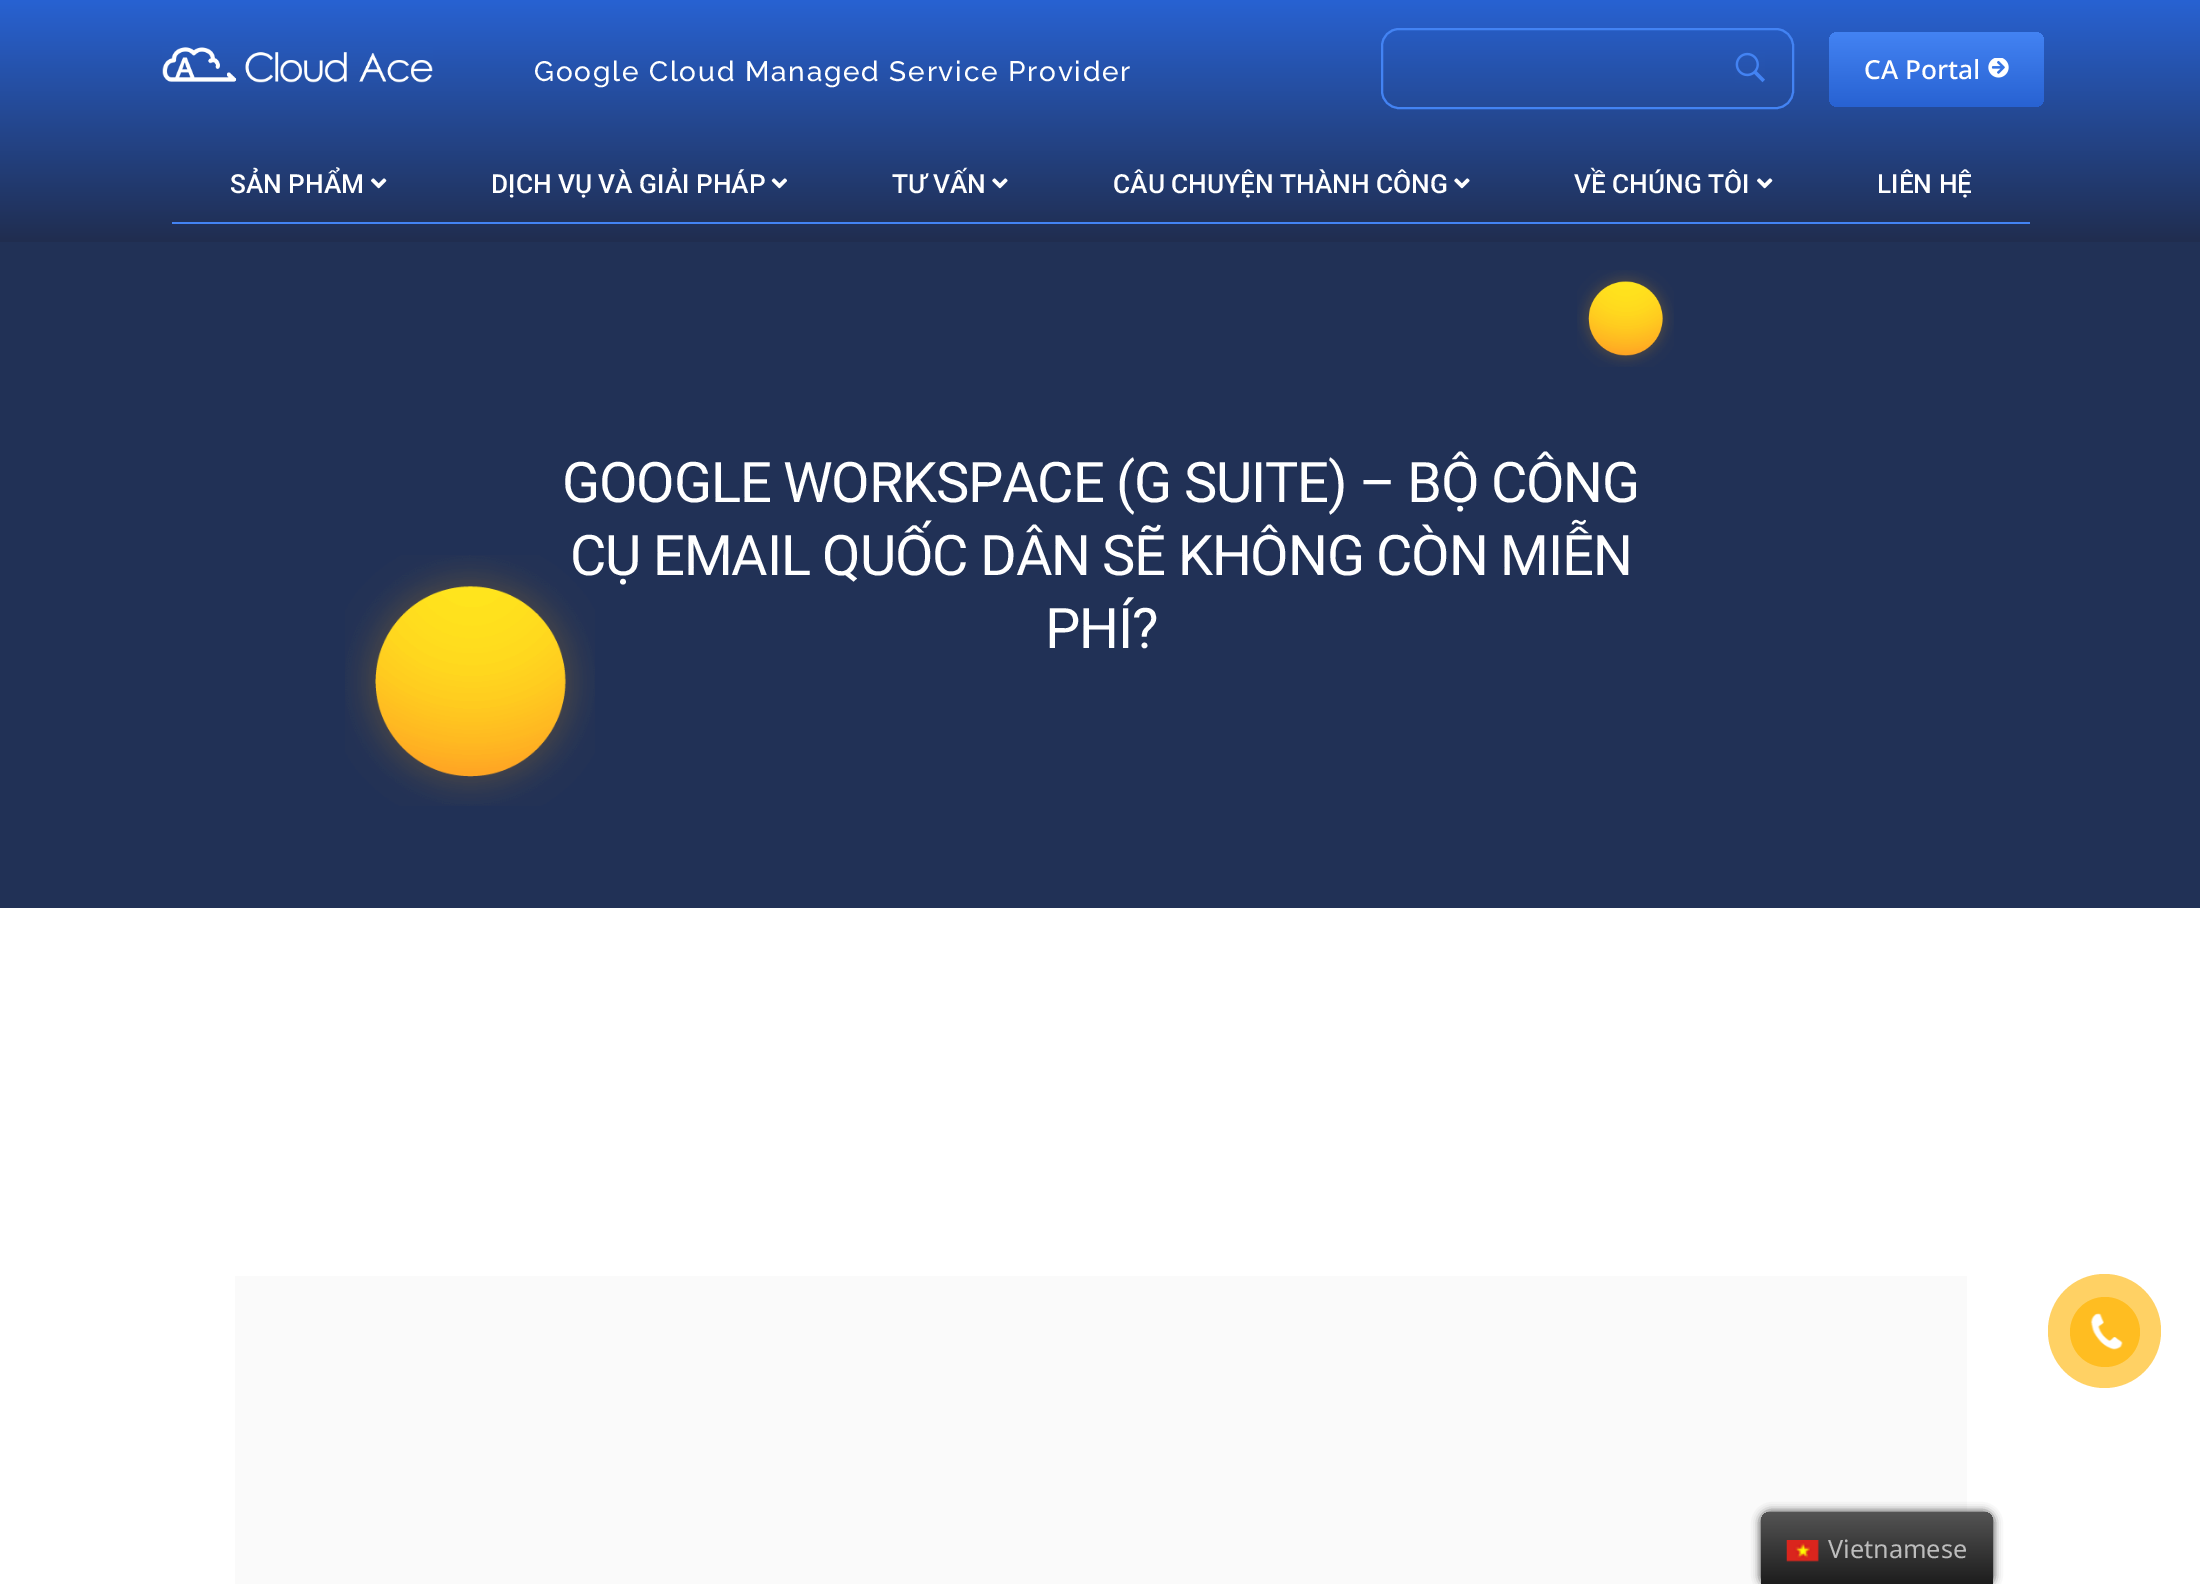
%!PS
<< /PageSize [2200 1584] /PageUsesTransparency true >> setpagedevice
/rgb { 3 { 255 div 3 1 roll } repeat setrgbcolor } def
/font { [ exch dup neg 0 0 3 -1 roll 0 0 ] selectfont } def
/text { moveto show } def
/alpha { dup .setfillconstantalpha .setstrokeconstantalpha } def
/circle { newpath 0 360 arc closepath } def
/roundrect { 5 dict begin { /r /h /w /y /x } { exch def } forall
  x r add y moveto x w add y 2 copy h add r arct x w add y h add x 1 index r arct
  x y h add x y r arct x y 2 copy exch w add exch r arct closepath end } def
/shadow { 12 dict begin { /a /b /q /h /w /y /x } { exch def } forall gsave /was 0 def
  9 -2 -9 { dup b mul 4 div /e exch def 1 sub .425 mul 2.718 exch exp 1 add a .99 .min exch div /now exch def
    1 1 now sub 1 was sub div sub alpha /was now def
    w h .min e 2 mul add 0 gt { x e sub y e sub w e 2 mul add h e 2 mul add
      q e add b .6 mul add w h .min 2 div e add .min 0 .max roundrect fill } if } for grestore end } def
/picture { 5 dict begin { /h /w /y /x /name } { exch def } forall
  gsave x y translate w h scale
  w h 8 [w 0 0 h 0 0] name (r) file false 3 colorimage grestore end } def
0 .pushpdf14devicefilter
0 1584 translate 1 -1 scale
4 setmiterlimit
255 255 255 rgb
0 0 2200 1584 rectfill
gsave 0 0 moveto 2200 0 rlineto 0 242 rlineto -2200 0 rlineto closepath clip newpath
<< /ShadingType 2 /ColorSpace /DeviceRGB /Coords [1101 0 1101 242] /Extend [true true] /Function << /FunctionType 2 /Domain [0 1] /C0 [0.157 0.384 0.824] /C1 [0.125 0.176 0.31] /N 1 >> >> shfill grestore
(img_01.rgb) 162 47 271 36 picture
67 131 243 rgb
2 setlinewidth
1382 29 411 79 17 roundrect stroke
(img_02.rgb) 1735 52 30 31 picture
gsave 1829 32 215 75 9 roundrect clip newpath
<< /ShadingType 2 /ColorSpace /DeviceRGB /Coords [1936 31 1936 107] /Extend [true true] /Function << /FunctionType 2 /Domain [0 1] /C0 [0.263 0.514 0.953] /C1 [0.157 0.384 0.824] /N 1 >> >> shfill grestore
(img_03.rgb) 1988 58 21 20 picture
(img_04.rgb) 371 178 16 11 picture
(img_05.rgb) 771 178 16 11 picture
(img_06.rgb) 992 178 16 11 picture
(img_06.rgb) 1454 178 16 11 picture
(img_04.rgb) 1757 178 16 11 picture
172 222 1858 2 rectfill
33 49 86 rgb
0 242 2200 666 rectfill
(img_07.rgb) 1577 270 97 97 picture
(img_08.rgb) 345 555 250 251 picture
250 250 250 rgb
235 1276 1732 308 rectfill
255 209 100 rgb
2048 1274 113 114 56.5 roundrect fill
255 189 33 rgb
2105 1332 35 circle fill
(img_09.rgb) 2090 1313 33 37 picture
33 33 33 rgb
1761 1512 232 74 9 4.5 1 shadow
gsave 1770 1512 moveto 214 0 rlineto 5 0 9 4 9 9 rcurveto 0 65 rlineto -232 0 rlineto 0 -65 rlineto 0 -5 4 -9 9 -9 rcurveto closepath clip newpath
<< /ShadingType 2 /ColorSpace /DeviceRGB /Coords [1877 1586 1877 1512] /Extend [true true] /Function << /FunctionType 2 /Domain [0 1] /C0 [0.106 0.106 0.106] /C1 [0.329 0.329 0.329] /N 1 >> >> shfill grestore
(img_10.rgb) 1786 1540 33 22 picture
/Raleway-Medium 28 font
255 255 255 rgb
534 81 moveto 1.75 0 (Google Cloud Managed Service Provider) ashow
/NotoSans-Medium 26.25 font
(CA Portal) 1864 79 text
/Roboto-Medium 26.25 font
(SẢN PHẨM) 230 193 text
(DỊCH VỤ VÀ GIẢI PHÁP) 491 193 text
(TƯ VẤN) 892 193 text
(CÂU CHUYỆN THÀNH CÔNG) 1113 193 text
(VỀ CHÚNG TÔI) 1574 193 text
(LIÊN HỆ) 1877 193 text
/Roboto-Regular 56 font
562 502 moveto -1.2 0 (GOOGLE WORKSPACE \(G SUITE\) – BỘ CÔNG) ashow
570 575 moveto -1.2 0 (CỤ EMAIL QUỐC DÂN SẼ KHÔNG CÒN MIỄN) ashow
1045 648 moveto -1.2 0 (PHÍ?) ashow
/NotoSans-Regular 25.25 font
189 189 189 rgb
(Vietnamese) 1828 1558 text
.poppdf14devicefilter showpage
